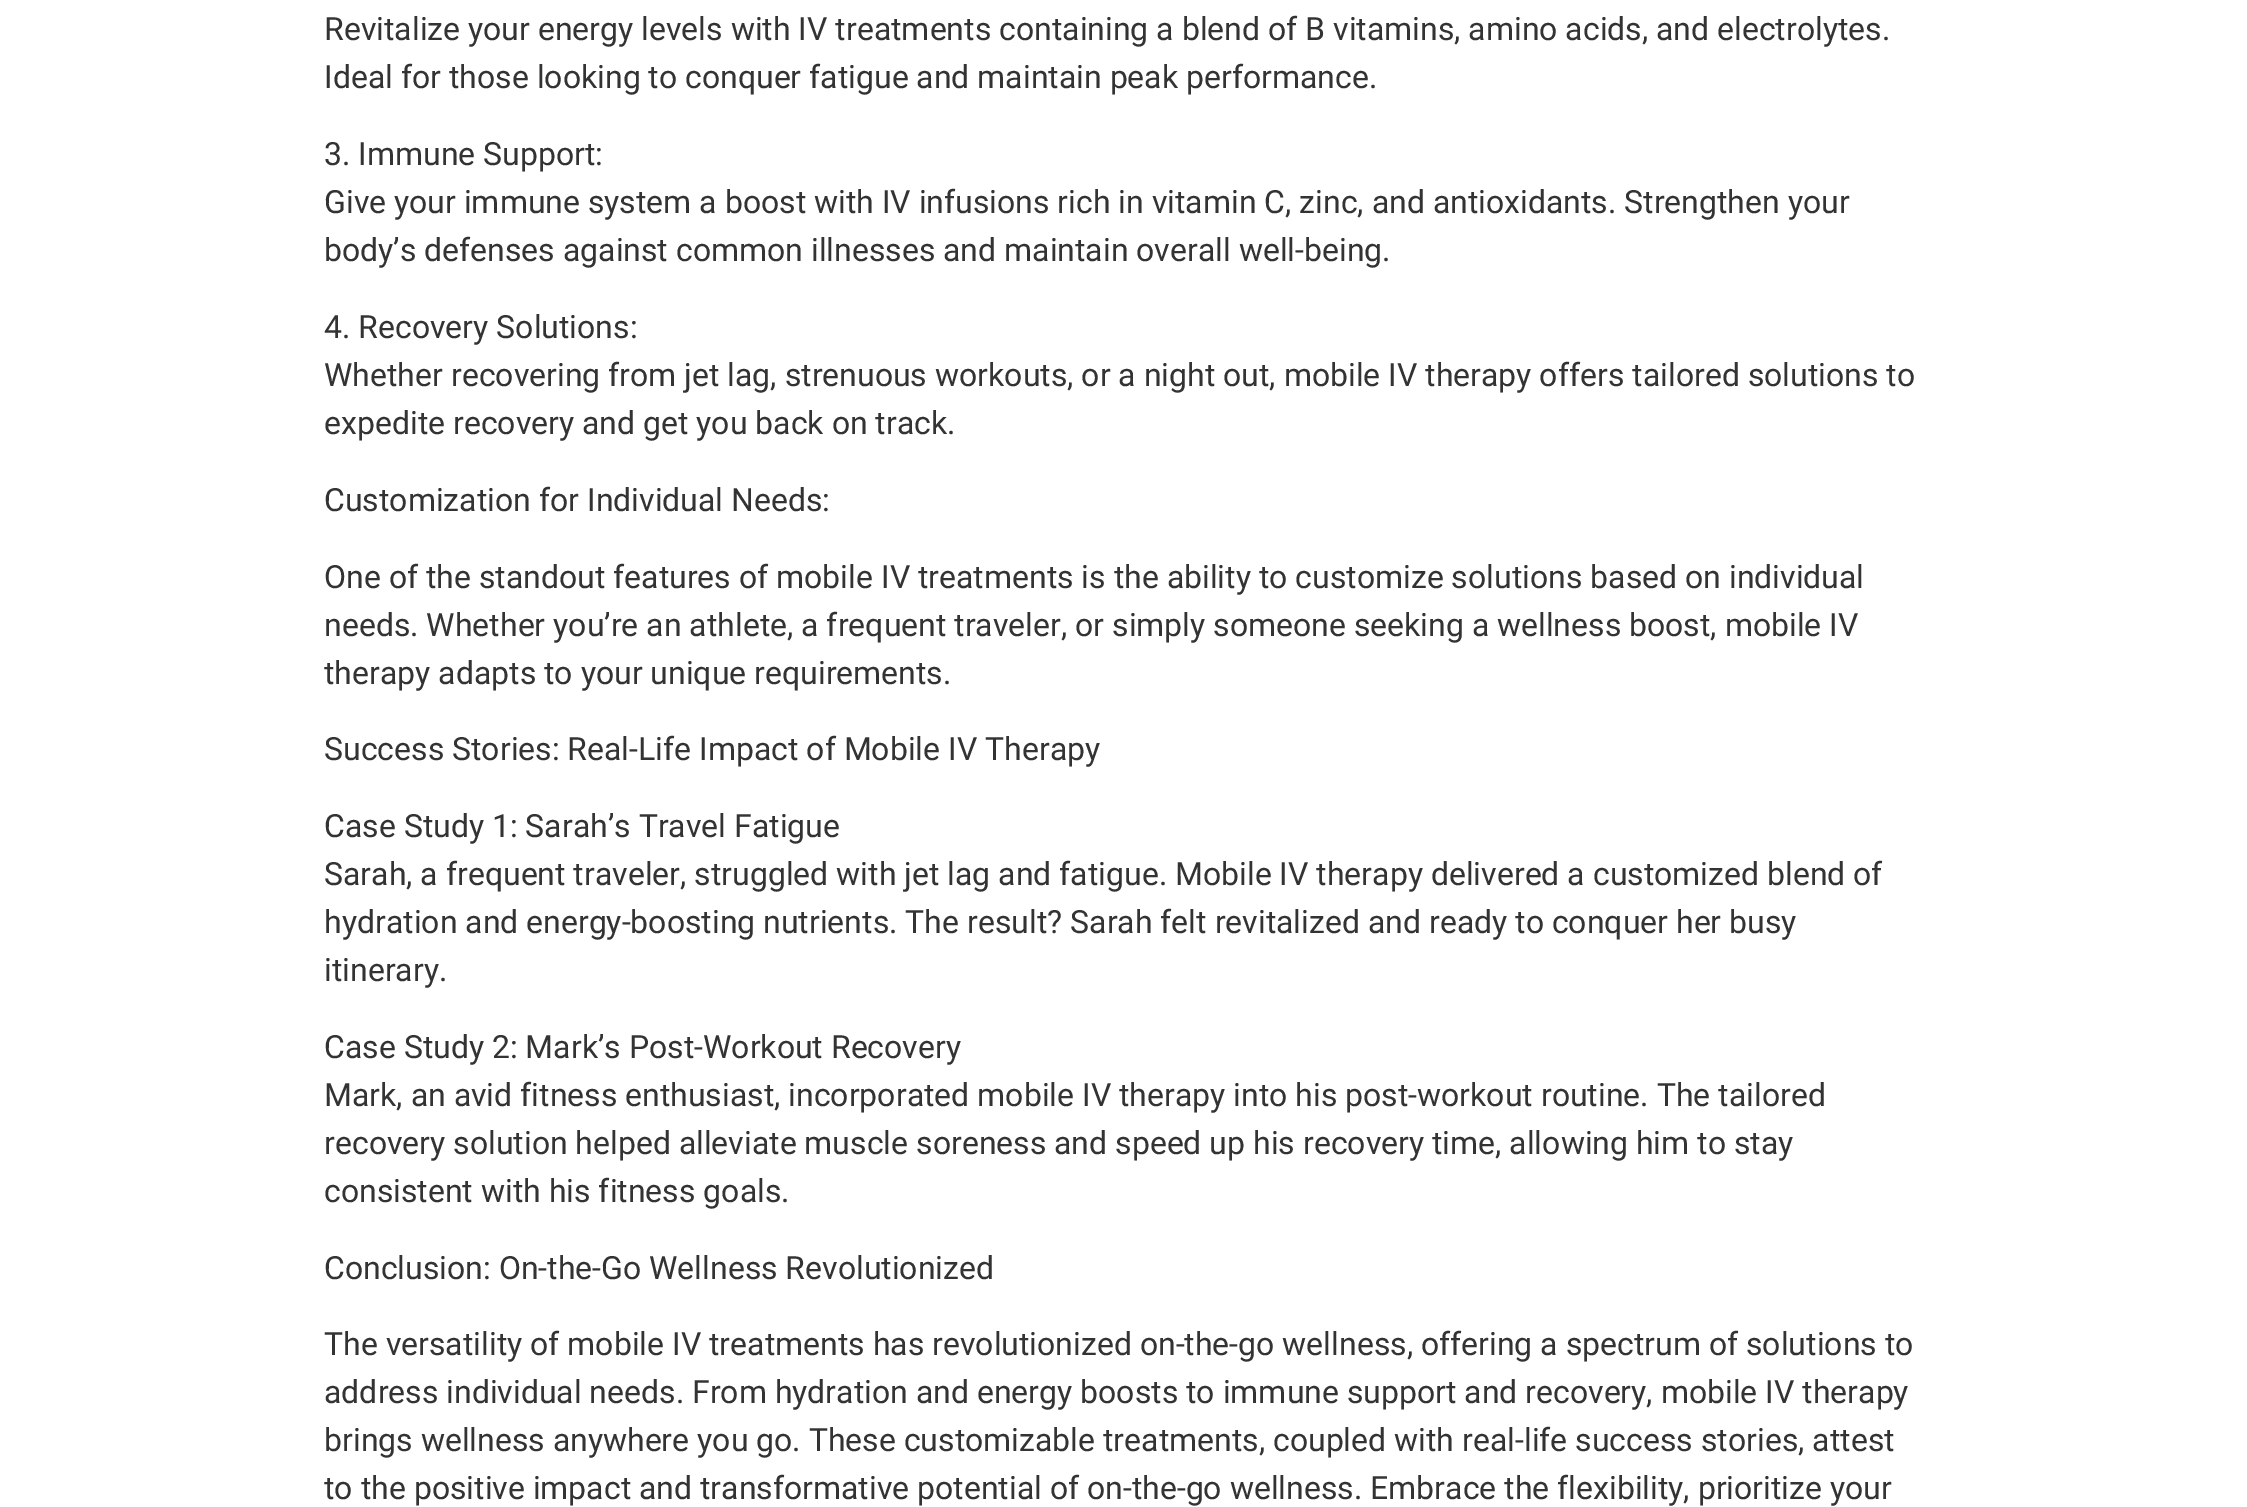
%!PS
<< /PageSize [2247 1507] >> setpagedevice
/rgb { 3 { 255 div 3 1 roll } repeat setrgbcolor } def
/font { [ exch dup neg 0 0 3 -1 roll 0 0 ] selectfont } def
/text { moveto show } def
0 1507 translate 1 -1 scale
4 setmiterlimit
255 255 255 rgb
0 0 2247 1507 rectfill
/Roboto-Regular 32 font
51 51 51 rgb
(Revitalize your energy levels with IV treatments containing a blend of B vitamins, amino acids, and electrolytes.) 324 40 text
(Ideal for those looking to conquer fatigue and maintain peak performance.) 324 88 text
(3. Immune Support:) 324 165 text
(Give your immune system a boost with IV infusions rich in vitamin C, zinc, and antioxidants. Strengthen your) 324 213 text
(body’s defenses against common illnesses and maintain overall well-being.) 324 261 text
(4. Recovery Solutions:) 324 338 text
(Whether recovering from jet lag, strenuous workouts, or a night out, mobile IV therapy offers tailored solutions to) 324 386 text
(expedite recovery and get you back on track.) 324 434 text
(Customization for Individual Needs:) 324 511 text
(One of the standout features of mobile IV treatments is the ability to customize solutions based on individual) 324 588 text
(needs. Whether you’re an athlete, a frequent traveler, or simply someone seeking a wellness boost, mobile IV) 324 636 text
(therapy adapts to your unique requirements.) 324 684 text
(Success Stories: Real-Life Impact of Mobile IV Therapy) 324 760 text
(Case Study 1: Sarah’s Travel Fatigue) 324 837 text
(Sarah, a frequent traveler, struggled with jet lag and fatigue. Mobile IV therapy delivered a customized blend of) 324 885 text
(hydration and energy-boosting nutrients. The result? Sarah felt revitalized and ready to conquer her busy) 324 933 text
(itinerary.) 324 981 text
(Case Study 2: Mark’s Post-Workout Recovery) 324 1058 text
(Mark, an avid fitness enthusiast, incorporated mobile IV therapy into his post-workout routine. The tailored) 324 1106 text
(recovery solution helped alleviate muscle soreness and speed up his recovery time, allowing him to stay) 324 1154 text
(consistent with his fitness goals.) 324 1202 text
(Conclusion: On-the-Go Wellness Revolutionized) 324 1279 text
(The versatility of mobile IV treatments has revolutionized on-the-go wellness, offering a spectrum of solutions to) 324 1355 text
(address individual needs. From hydration and energy boosts to immune support and recovery, mobile IV therapy) 324 1403 text
(brings wellness anywhere you go. These customizable treatments, coupled with real-life success stories, attest) 324 1451 text
(to the positive impact and transformative potential of on-the-go wellness. Embrace the flexibility, prioritize your) 324 1499 text
showpage
